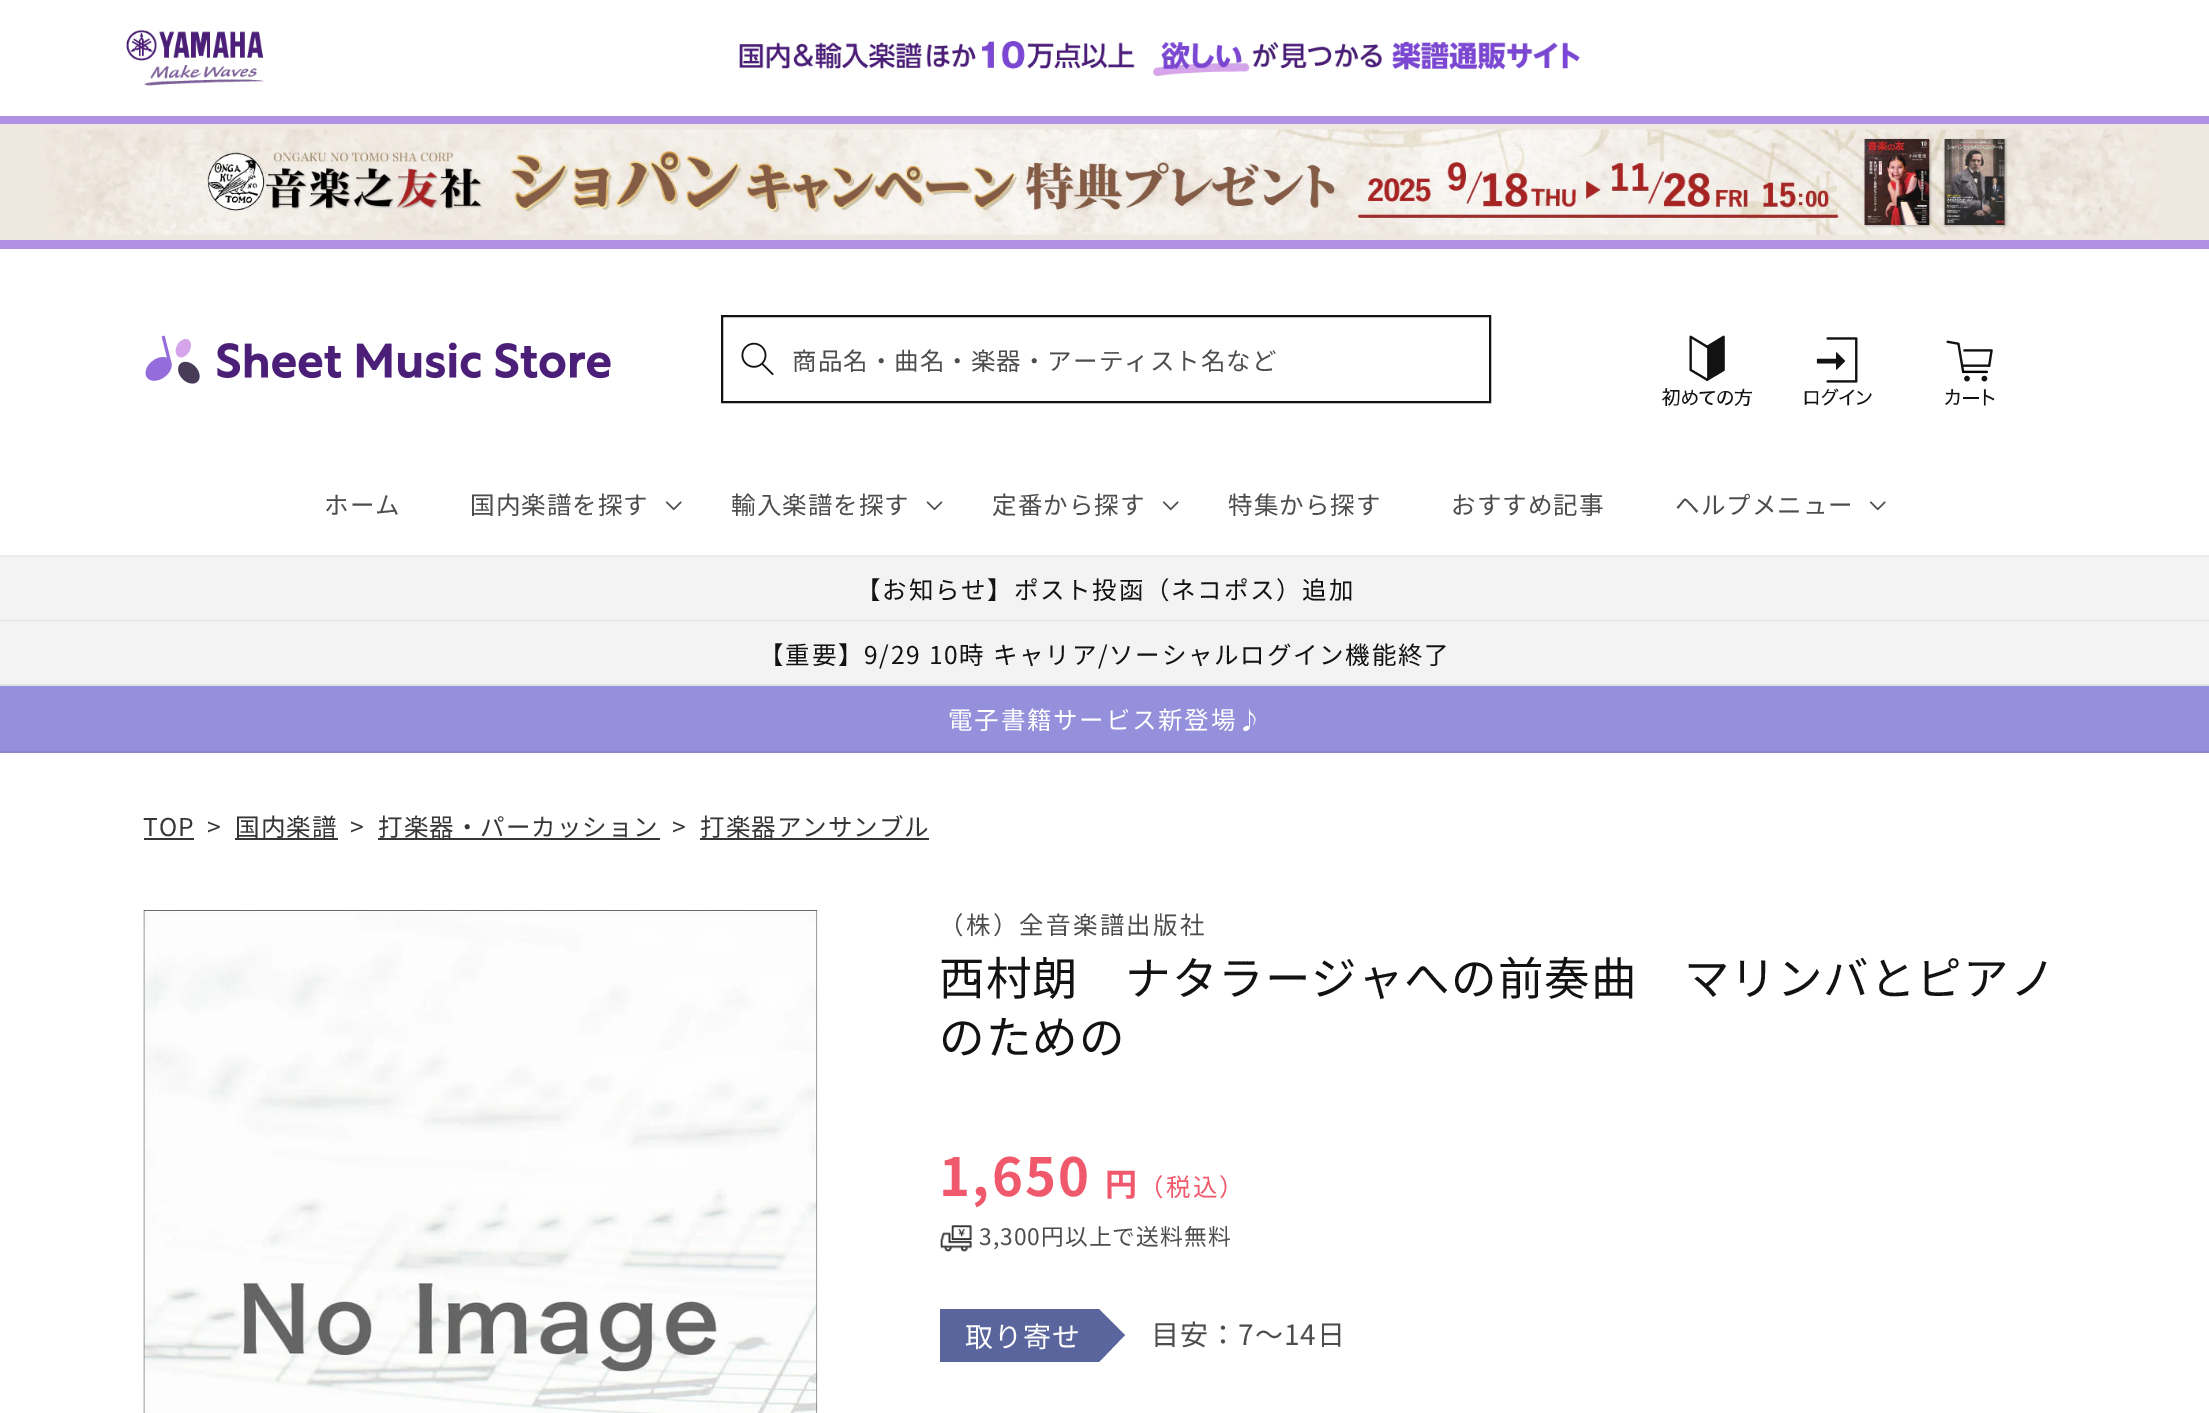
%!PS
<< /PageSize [2209 1413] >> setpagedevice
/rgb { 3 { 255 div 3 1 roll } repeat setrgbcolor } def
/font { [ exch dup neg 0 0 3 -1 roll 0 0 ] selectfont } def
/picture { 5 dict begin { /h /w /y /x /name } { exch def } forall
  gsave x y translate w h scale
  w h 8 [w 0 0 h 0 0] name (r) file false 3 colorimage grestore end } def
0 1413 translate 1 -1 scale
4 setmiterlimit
255 255 255 rgb
0 0 2209 1413 rectfill
176 145 228 rgb
0 116 2209 8 rectfill
(img_01.rgb) 126 30 1454 56 picture
238 232 224 rgb
0 124 2209 116 rectfill
176 145 228 rgb
0 240 2209 9 rectfill
(img_02.rgb) 46 129 2112 106 picture
236 236 236 rgb
0 555 2209 2 rectfill
(img_03.rgb) 145 335 466 49 picture
18 18 18 rgb
2 setlinewidth
722 316 768 86 rectstroke
(img_04.rgb) 741 342 33 34 picture
(img_05.rgb) 1662 335 90 71 picture
(img_06.rgb) 1804 337 68 69 picture
(img_07.rgb) 1945 340 50 66 picture
(img_08.rgb) 665 501 17 10 picture
(img_09.rgb) 926 501 17 10 picture
(img_08.rgb) 1162 501 17 10 picture
(img_08.rgb) 1869 501 17 10 picture
243 243 243 rgb
0 557 2209 63 rectfill
225 225 225 rgb
0 620 2209 1 rectfill
243 243 243 rgb
0 621 2209 63 rectfill
225 225 225 rgb
0 684 2209 2 rectfill
149 144 219 rgb
0 686 2209 65 rectfill
139 134 203 rgb
0 751 2209 2 rectfill
54 54 54 rgb
144 838 50 2 rectfill
235 838 103 2 rectfill
378 838 282 2 rectfill
700 838 229 2 rectfill
(img_10.rgb) 143 910 675 503 picture
(img_11.rgb) 940 1225 33 27 picture
90 101 158 rgb
940 1309 159 53 rectfill
1099 1362 moveto 0 -53 rlineto 26 26 rlineto closepath fill
/NotoSansJP-Regular 24.5 font
77 77 77 rgb
792 370 moveto 1.05 0 (商品名・曲名・楽器・アーティスト名など) ashow
324 514 moveto 1.05 0 (ホーム) ashow
470 514 moveto 1.05 0 (国内楽譜を探す) ashow
731 514 moveto 1.05 0 (輸入楽譜を探す) ashow
992 514 moveto 1.05 0 (定番から探す) ashow
1228 514 moveto 1.05 0 (特集から探す) ashow
1451 514 moveto 1.05 0 (おすすめ記事) ashow
1675 514 moveto 1.05 0 (ヘルプメニュー) ashow
18 18 18 rgb
856 599 moveto 1.75 0 (【お知らせ】ポスト投函（ネコポス）追加) ashow
759 664 moveto 1.75 0 (【重要】9/29 10時 キャリア/ソーシャルログイン機能終了) ashow
255 255 255 rgb
948 729 moveto 1.75 0 (電子書籍サービス新登場♪) ashow
54 54 54 rgb
143 836 moveto 1.05 0 (TOP) ashow
207 836 moveto 1.05 0 (>) ashow
235 836 moveto 1.05 0 (国内楽譜) ashow
350 836 moveto 1.05 0 (>) ashow
378 836 moveto 1.05 0 (打楽器・パーカッション) ashow
672 836 moveto 1.05 0 (>) ashow
700 836 moveto 1.05 0 (打楽器アンサンブル) ashow
77 77 77 rgb
939 934 moveto 2.25 0 (（株）全音楽譜出版社) ashow
/NotoSansJP-Regular 45.5 font
18 18 18 rgb
939 995 moveto 1.05 0 (西村朗　ナタラージャへの前奏曲　マリンバとピアノ) ashow
939 1054 moveto 1.05 0 (のための) ashow
/NotoSansJP-Bold 52.5 font
239 89 107 rgb
939 1196 moveto 2.25 0 (1,650) ashow
/NotoSansJP-Bold 32 font
1105 1196 moveto 2.25 0 (円) ashow
/NotoSansJP-Regular 24.5 font
1139 1196 moveto 2.25 0 (（税込）) ashow
/NotoSansJP-Regular 22.75 font
77 77 77 rgb
979 1245 moveto 1.05 0 (3,300円以上で送料無料) ashow
/NotoSansJP-Regular 28 font
255 255 255 rgb
965 1347 moveto 1.05 0 (取り寄せ) ashow
77 77 77 rgb
1151 1345 moveto 1.05 0 (目安：7～14日) ashow
showpage
